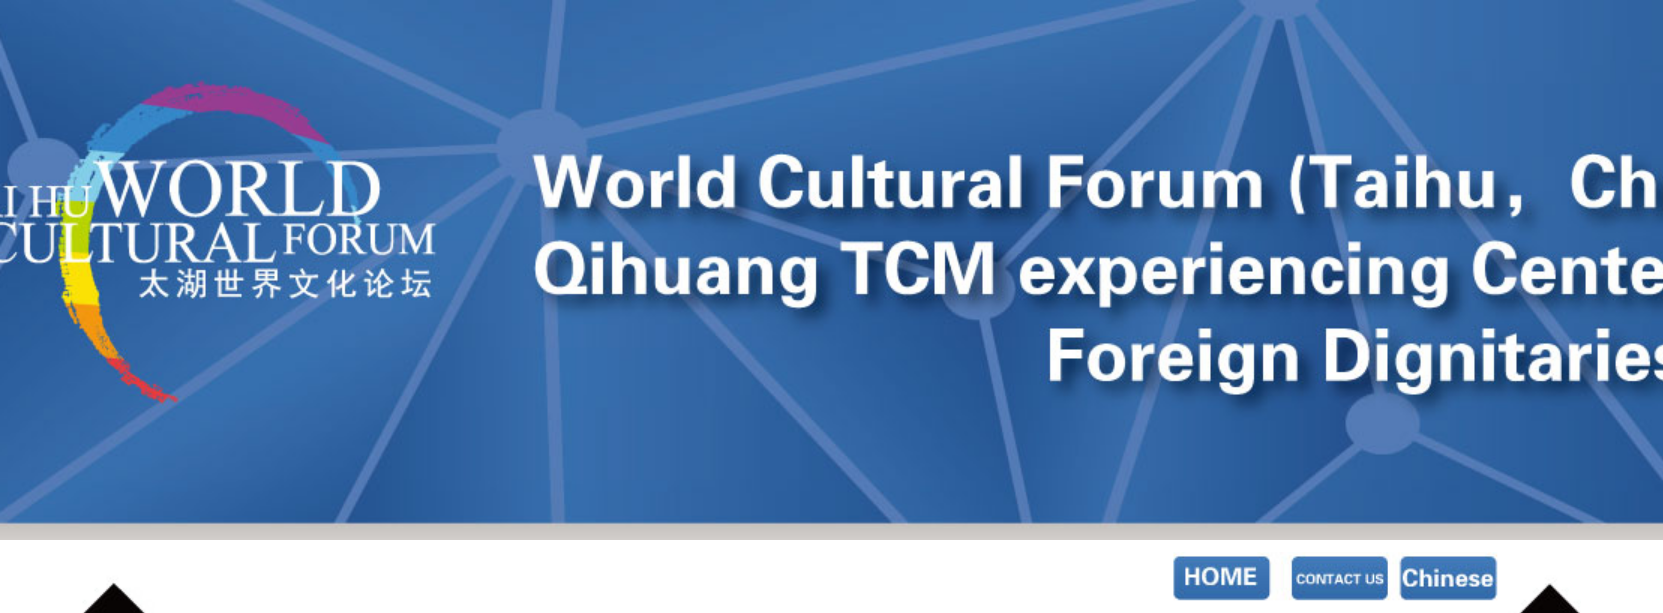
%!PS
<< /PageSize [1663 613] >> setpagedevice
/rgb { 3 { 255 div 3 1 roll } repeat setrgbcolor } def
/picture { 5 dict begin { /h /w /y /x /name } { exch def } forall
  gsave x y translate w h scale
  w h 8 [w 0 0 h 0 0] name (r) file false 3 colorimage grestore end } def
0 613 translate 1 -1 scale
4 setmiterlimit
255 255 255 rgb
0 0 1663 613 rectfill
(img_01.rgb) 0 0 1663 540 picture
(img_02.rgb) 82 552 1499 61 picture
showpage
